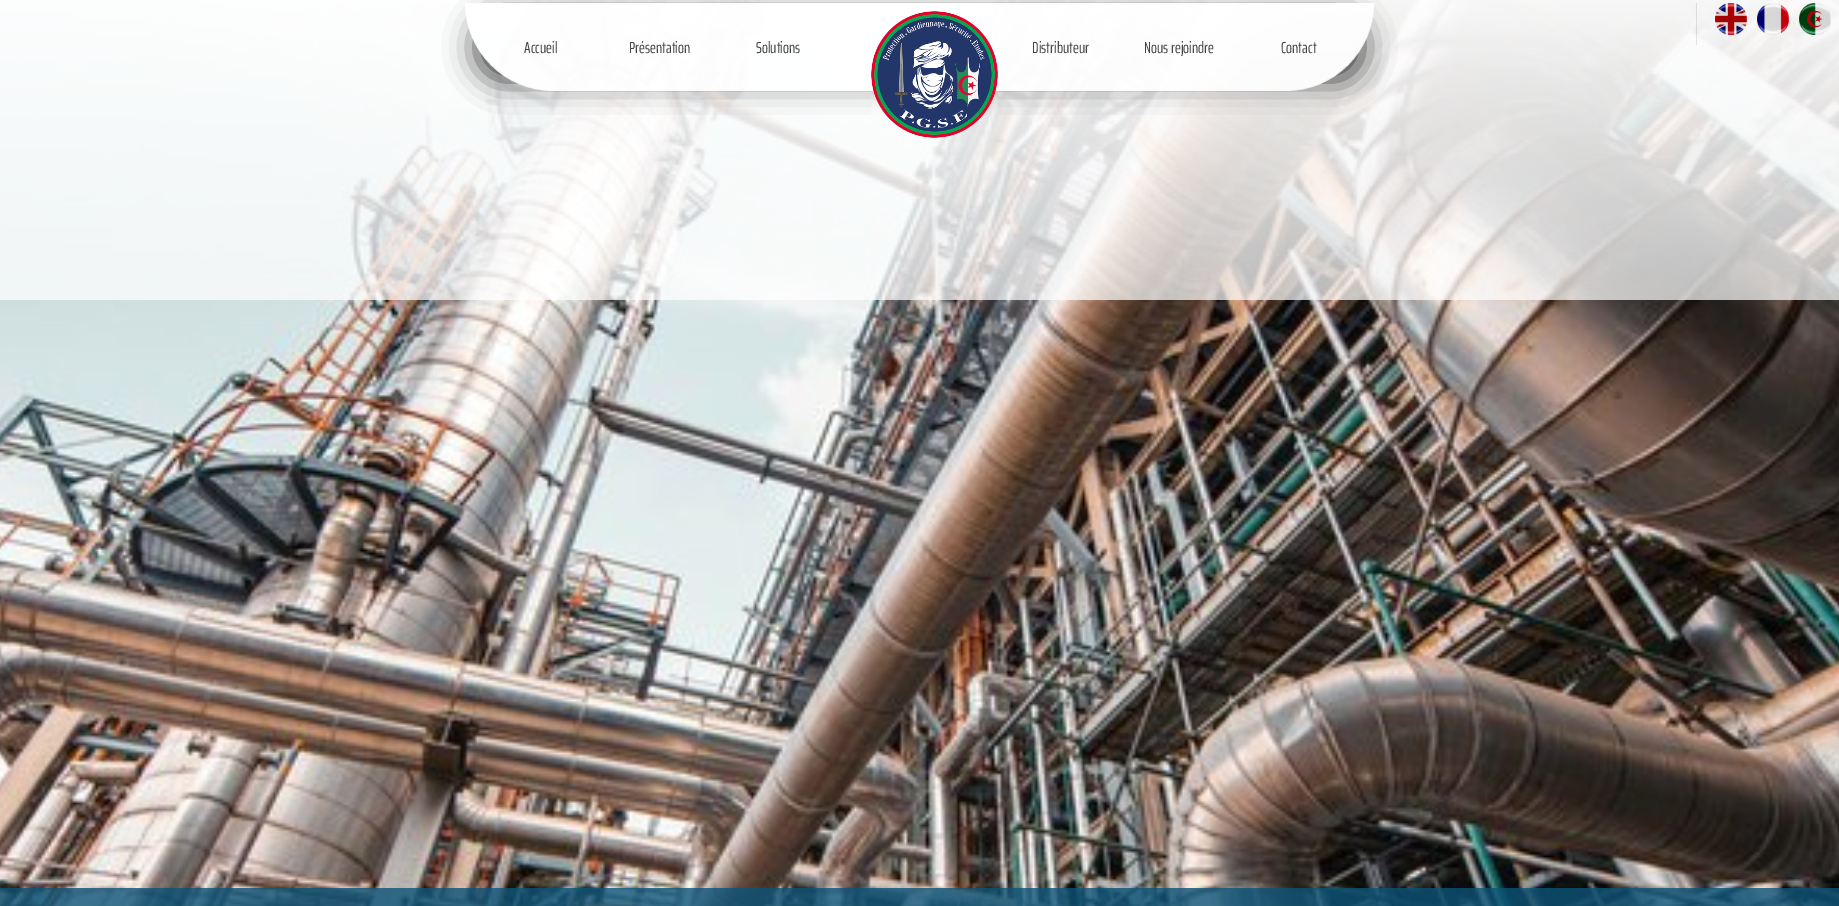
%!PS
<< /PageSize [1839 906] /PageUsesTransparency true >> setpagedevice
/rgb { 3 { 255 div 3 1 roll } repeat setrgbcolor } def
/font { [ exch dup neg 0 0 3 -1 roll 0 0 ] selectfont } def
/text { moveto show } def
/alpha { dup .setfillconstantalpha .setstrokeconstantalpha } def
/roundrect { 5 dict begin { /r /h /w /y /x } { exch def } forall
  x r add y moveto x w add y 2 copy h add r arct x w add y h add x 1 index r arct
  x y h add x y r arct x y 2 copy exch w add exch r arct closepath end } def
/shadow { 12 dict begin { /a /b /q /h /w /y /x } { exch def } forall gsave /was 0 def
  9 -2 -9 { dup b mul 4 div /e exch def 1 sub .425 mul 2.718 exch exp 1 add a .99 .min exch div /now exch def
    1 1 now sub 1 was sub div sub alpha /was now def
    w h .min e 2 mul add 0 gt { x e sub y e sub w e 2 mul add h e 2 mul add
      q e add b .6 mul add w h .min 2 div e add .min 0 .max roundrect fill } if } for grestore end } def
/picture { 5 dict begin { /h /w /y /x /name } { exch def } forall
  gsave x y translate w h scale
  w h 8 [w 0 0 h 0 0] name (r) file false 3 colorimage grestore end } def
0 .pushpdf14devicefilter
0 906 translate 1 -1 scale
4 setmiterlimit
255 255 255 rgb
0 0 1839 906 rectfill
(img_01.rgb) 0 0 1839 906 picture
0.8 alpha
12 83 119 rgb
0 888 1839 18 rectfill
0.1 alpha
0 0 0 rgb
1696 3 1 42 rectfill
1 alpha
(img_02.rgb) 1715 3 32 32 picture
(img_03.rgb) 1757 3 32 32 picture
(img_04.rgb) 1799 3 32 32 picture
gsave
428 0 moveto 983 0 rlineto 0 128 rlineto -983 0 rlineto closepath 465 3 moveto 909 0 rlineto 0 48.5 -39.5 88 -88 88 rcurveto -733 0 rlineto -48.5 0 -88 -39.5 -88 -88 rcurveto closepath eoclip newpath
476 14 887 66 66 15.5 0.75 shadow
grestore
0.85 alpha
255 255 255 rgb
465 3 moveto 909 0 rlineto 0 48.5 -39.5 88 -88 88 rcurveto -733 0 rlineto -48.5 0 -88 -39.5 -88 -88 rcurveto closepath fill
1 alpha
(img_05.rgb) 871 11 127 127 picture
/SairaExtraCondensed-Regular 16 font
68 68 68 rgb
(Accueil) 524 53 text
(Présentation) 629 53 text
(Solutions) 756 53 text
(Distributeur) 1032 53 text
(Nous rejoindre) 1144 53 text
(Contact) 1281 53 text
.poppdf14devicefilter showpage
